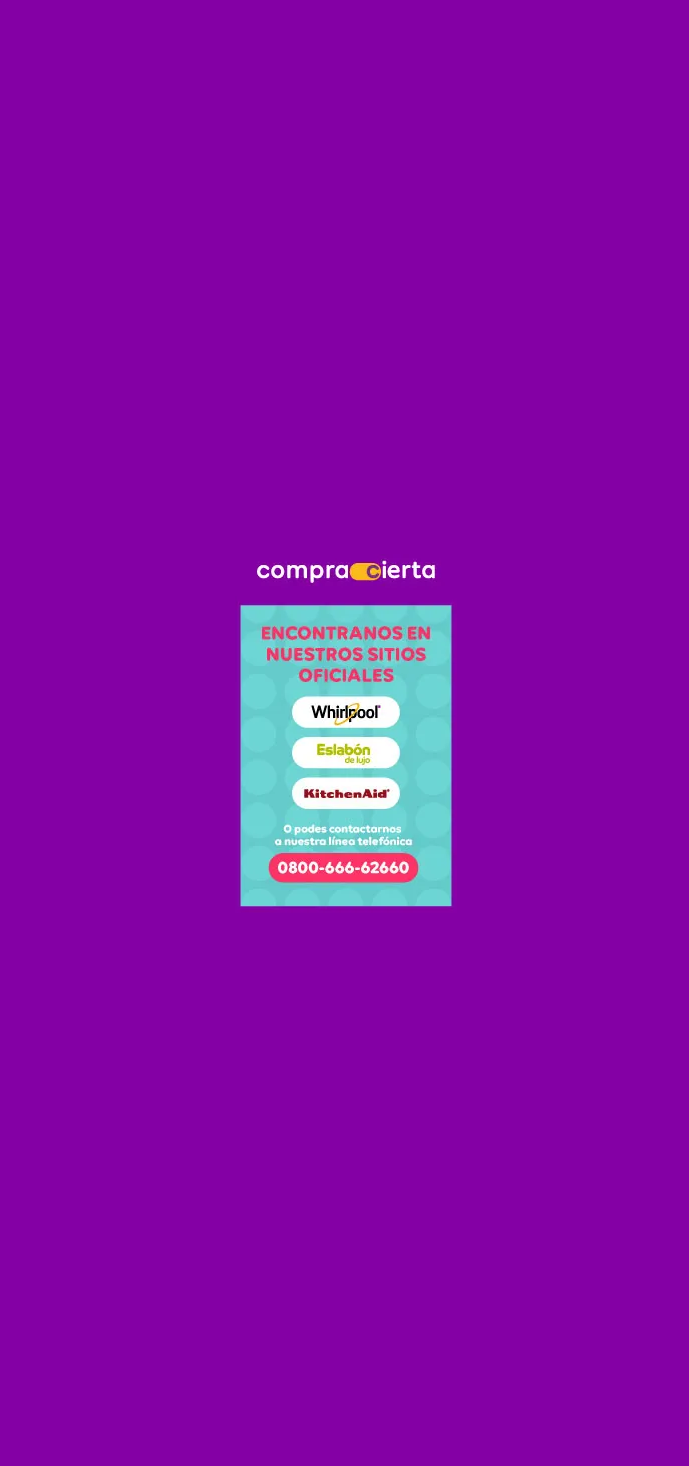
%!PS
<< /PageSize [689 1466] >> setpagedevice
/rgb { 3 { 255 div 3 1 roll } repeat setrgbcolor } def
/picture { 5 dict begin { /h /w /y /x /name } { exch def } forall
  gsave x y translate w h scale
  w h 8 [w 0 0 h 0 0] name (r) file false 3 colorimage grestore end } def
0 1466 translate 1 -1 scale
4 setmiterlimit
132 0 165 rgb
0 0 689 1466 rectfill
(img_01.rgb) 235 554 222 359 picture
showpage
